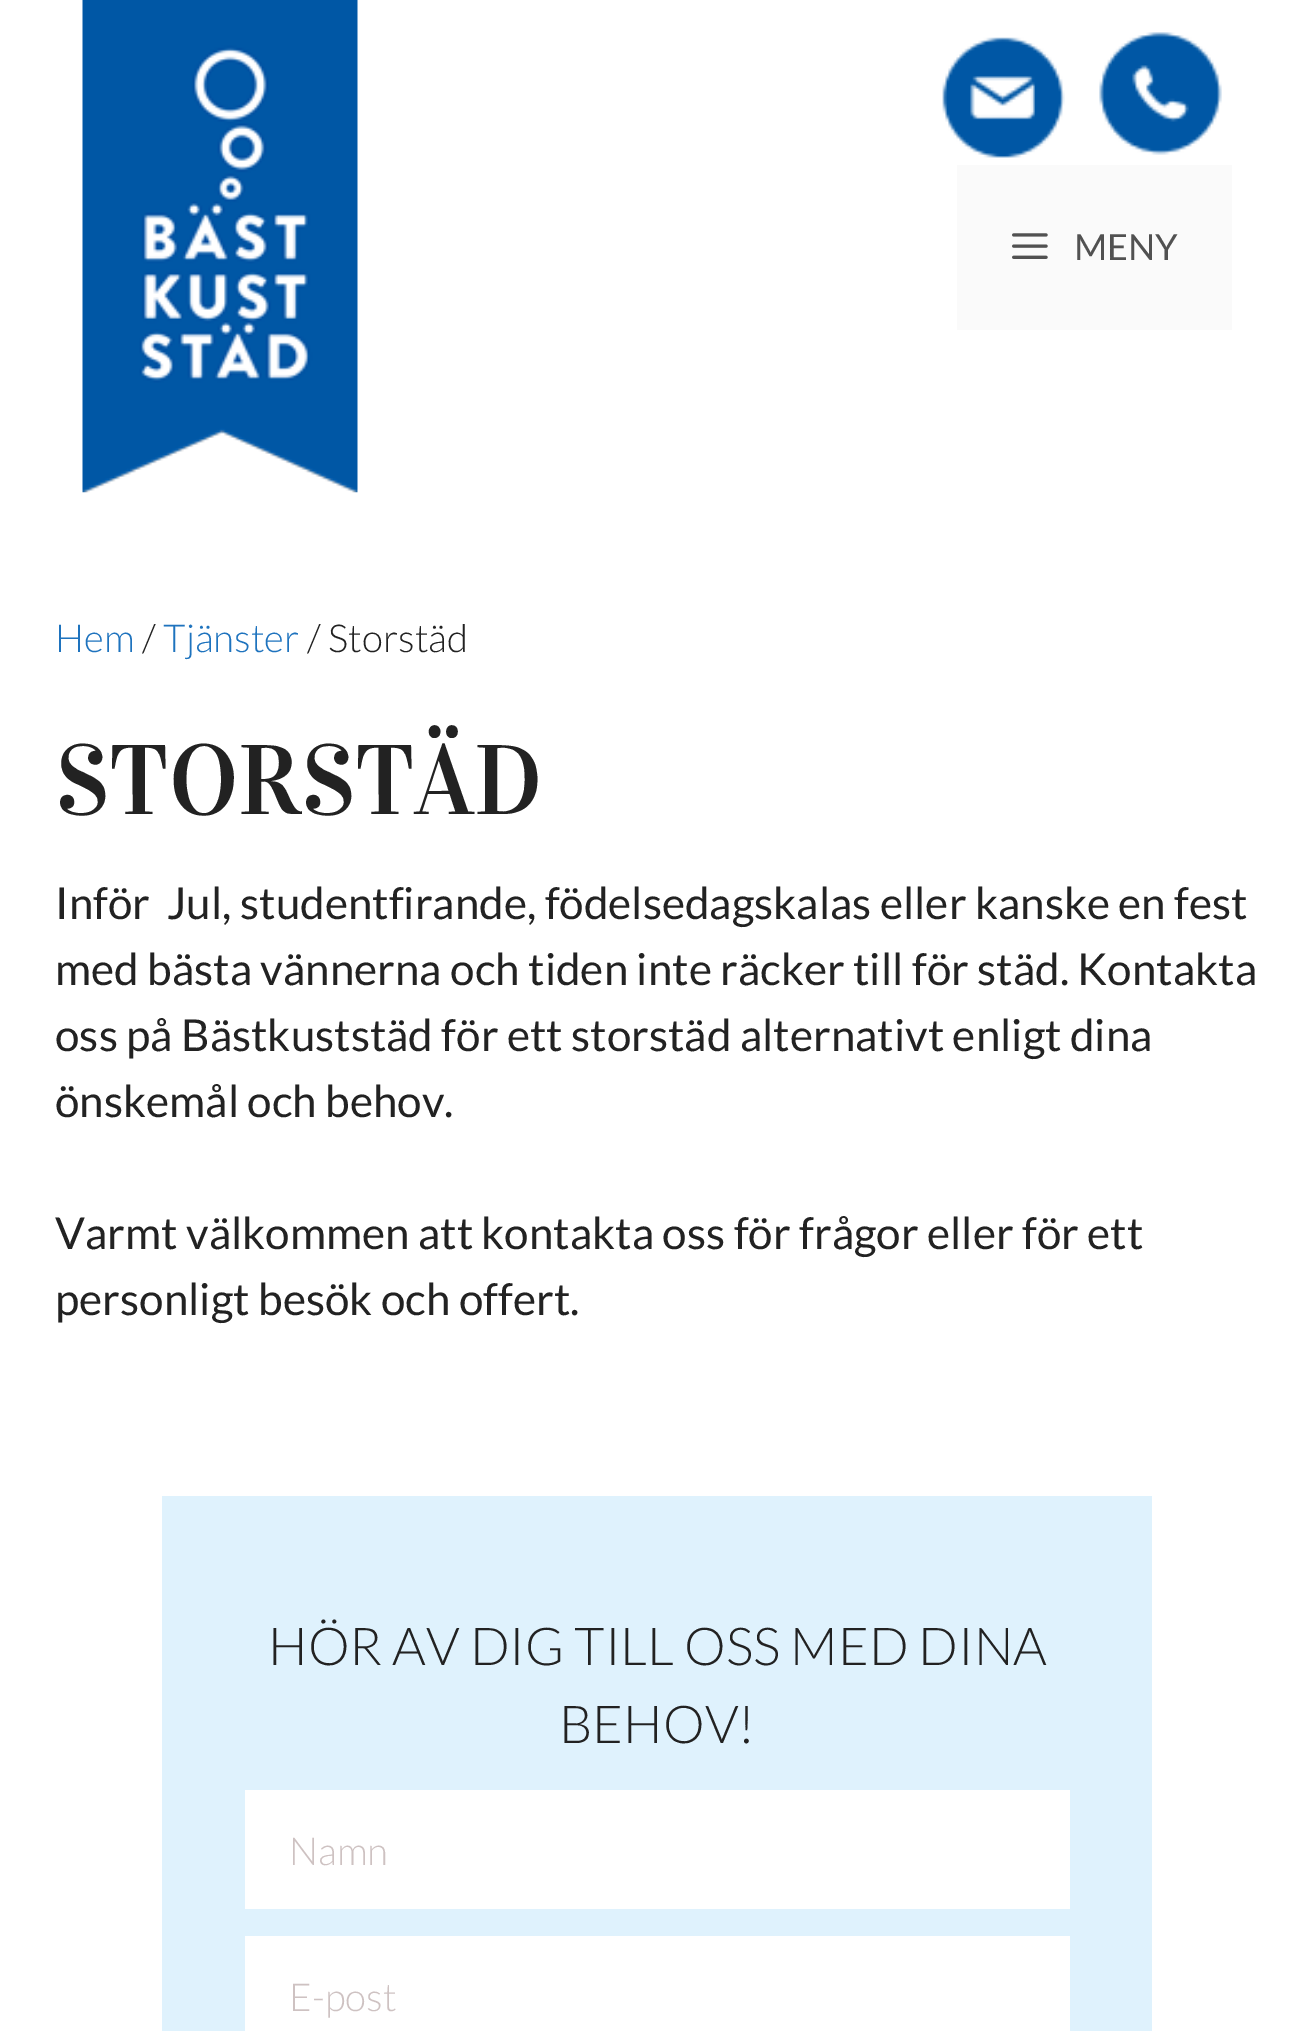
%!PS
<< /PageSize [1314 2031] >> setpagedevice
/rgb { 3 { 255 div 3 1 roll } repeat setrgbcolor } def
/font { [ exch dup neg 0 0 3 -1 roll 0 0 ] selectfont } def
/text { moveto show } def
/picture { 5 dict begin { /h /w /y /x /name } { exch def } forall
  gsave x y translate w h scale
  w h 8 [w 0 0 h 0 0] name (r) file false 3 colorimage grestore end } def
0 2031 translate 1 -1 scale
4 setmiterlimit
255 255 255 rgb
0 0 1314 2031 rectfill
(img_01.rgb) 82 0 276 493 picture
(img_02.rgb) 942 37 123 121 picture
(img_03.rgb) 1099 32 123 123 picture
250 250 250 rgb
957 165 275 165 rectfill
(img_04.rgb) 1012 233 36 26 picture
223 242 253 rgb
162 1496 990 535 rectfill
255 255 255 rgb
245 1790 825 119 rectfill
245 1936 825 95 rectfill
/Lato-Regular 36 font
81 81 81 rgb
(MENY) 1074 260 text
/Lato-Light 38.5 font
30 115 190 rgb
(Hem) 55 652 text
34 34 34 rgb
(/) 142 652 text
30 115 190 rgb
(Tjänster) 163 652 text
34 34 34 rgb
(/ Storstäd) 307 652 text
/Vidaloka-Regular 99 font
(STORSTÄD) 55 814 text
/Lato-Regular 44 font
(Inför  Jul, studentfirande, födelsedagskalas eller kanske en fest) 55 919 text
(med bästa vännerna och tiden inte räcker till för städ. Kontakta) 55 985 text
(oss på Bästkuststäd för ett storstäd alternativt enligt dina) 55 1051 text
(önskemål och behov.) 55 1117 text
(Varmt välkommen att kontakta oss för frågor eller för ett) 55 1249 text
(personligt besök och offert.) 55 1315 text
/Lato-Light 52.25 font
(HÖR AV DIG TILL OSS MED DINA) 268 1665 text
(BEHOV!) 559 1743 text
/Lato-Light 38.5 font
206 194 194 rgb
(Namn) 289 1865 text
(E-post) 289 2011 text
showpage
